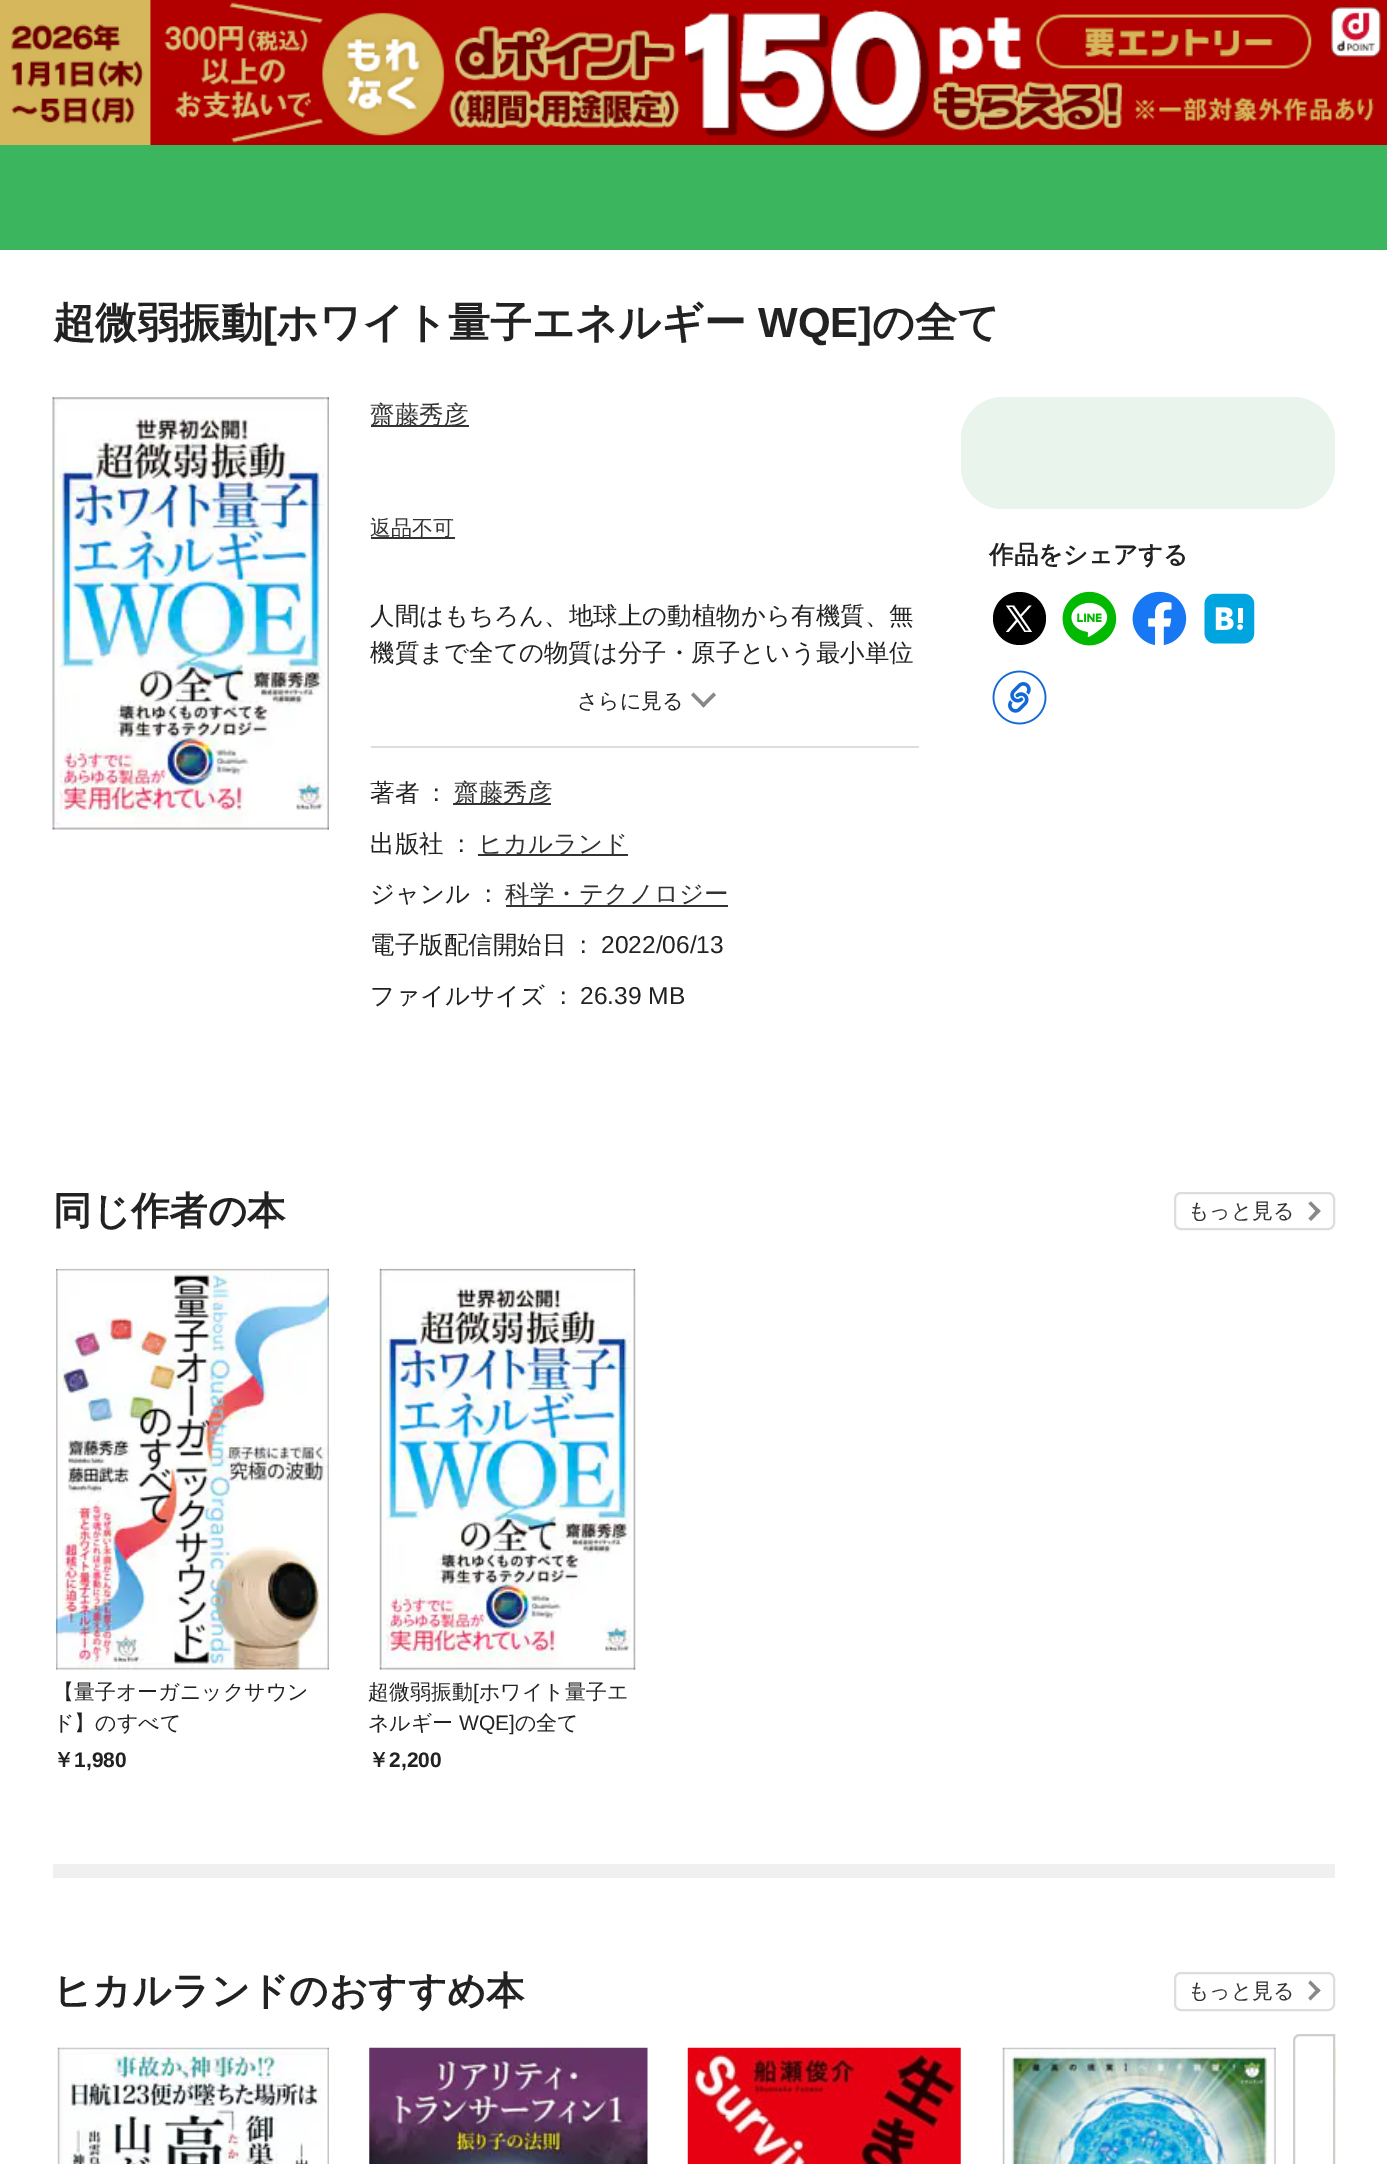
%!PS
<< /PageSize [1387 2164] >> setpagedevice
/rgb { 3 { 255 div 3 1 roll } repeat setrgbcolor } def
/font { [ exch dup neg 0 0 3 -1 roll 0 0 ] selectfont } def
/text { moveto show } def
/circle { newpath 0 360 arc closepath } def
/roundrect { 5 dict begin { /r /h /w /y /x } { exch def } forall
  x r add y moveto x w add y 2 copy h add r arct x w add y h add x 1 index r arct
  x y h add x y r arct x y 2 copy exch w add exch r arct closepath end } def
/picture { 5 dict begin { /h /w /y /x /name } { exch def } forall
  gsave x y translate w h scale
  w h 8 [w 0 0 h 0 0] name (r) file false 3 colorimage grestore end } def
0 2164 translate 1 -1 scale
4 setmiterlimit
255 255 255 rgb
0 0 1387 2164 rectfill
(img_01.rgb) 0 0 1387 145 picture
60 182 94 rgb
0 145 1387 105 rectfill
(img_02.rgb) 52 397 277 433 picture
51 51 51 rgb
371 425 98 2 rectfill
371 537 84 2 rectfill
232 244 236 rgb
961 397 374 112 42 roundrect fill
0 0 0 rgb
1019.5 618.5 26.5 circle fill
255 255 255 rgb
1021.5 616.5 moveto 10 -11 rlineto -2.5 0 rlineto -8.5 9.5 rlineto -6.5 -9.5 rlineto -8 0 rlineto 10 14.5 rlineto -10 12 rlineto 2.5 0 rlineto 9 -10.5 rlineto 7 10.5 rlineto 7.5 0 rlineto closepath 1018.5 620 moveto -9.5 -13 rlineto 3.5 0 rlineto 16.5 23.5 rlineto -3.5 0 rlineto closepath fill
(img_03.rgb) 1062 591 55 55 picture
(img_04.rgb) 1132 591 55 55 picture
(img_05.rgb) 1204 593 51 51 picture
(img_06.rgb) 992 670 55 55 picture
221 221 221 rgb
371 746 548 2 rectfill
136 136 136 rgb
716 695 moveto -12.5 12.5 rlineto -2.5 -2.5 rlineto 12.5 -12.5 rlineto closepath fill
706 705 moveto -2.5 2.5 rlineto -12.5 -12.5 rlineto 2.5 -2.5 rlineto closepath fill
51 51 51 rgb
453 803 98 2 rectfill
478 854 150 2 rectfill
506 905 222 2 rectfill
221 221 221 rgb
2 setlinewidth
1175 1193 159 36 6 roundrect stroke
136 136 136 rgb
1311 1201.5 moveto 9.5 9.5 rlineto -2.5 2.5 rlineto -9.5 -10 rlineto closepath fill
1318 1208.5 moveto 2.5 2.5 rlineto -9.5 10 rlineto -2.5 -2.5 rlineto closepath fill
(img_07.rgb) 56 1268 273 402 picture
(img_08.rgb) 379 1268 257 402 picture
240 240 240 rgb
53 1864 1282 14 rectfill
221 221 221 rgb
1175 1973 159 37 6 roundrect stroke
136 136 136 rgb
1310.5 1980.5 moveto 10 10 rlineto -2.5 2.5 rlineto -9.5 -10 rlineto closepath fill
1318 1988 moveto 2.5 2.5 rlineto -10 10 rlineto -2 -2.5 rlineto closepath fill
206 206 206 rgb
1300 2035 moveto 34 0 rlineto 0 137 rlineto -34 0 rlineto -3.5 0 -6 -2.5 -6 -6 rcurveto 0 -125 rlineto 0 -3.5 2.5 -6 6 -6 rcurveto closepath stroke
(img_09.rgb) 57 2047 272 117 picture
(img_10.rgb) 369 2047 279 117 picture
(img_11.rgb) 687 2047 274 117 picture
(img_12.rgb) 1002 2047 274 117 picture
(img_13.rgb) 1335 2047 1 117 picture
/WenQuanYiZenHei-Bold 42 font
34 34 34 rgb
(超微弱振動) 53 337 text
/LiberationSans-Bold 42 font
([) 263 337 text
/WenQuanYiZenHei-Bold 42 font
(ホワイト量子エネルギー) 276 337 text
/LiberationSans-Bold 42 font
(WQE]) 758 337 text
/WenQuanYiZenHei-Bold 42 font
(の全て) 872 337 text
/WenQuanYiZenHei-Medium 24.5 font
51 51 51 rgb
(齋藤秀彦) 370 423 text
/WenQuanYiZenHei-Medium 21 font
(返品不可) 370 535 text
/WenQuanYiZenHei-Bold 24.5 font
34 34 34 rgb
(作品をシェアする) 989 563 text
/WenQuanYiZenHei-Medium 24.5 font
(人間はもちろん、地球上の動植物から有機質、無) 370 624 text
(機質まで全ての物質は分子・原子という最小単位) 370 661 text
/WenQuanYiZenHei-Medium 21 font
(さらに見る) 577 708 text
/WenQuanYiZenHei-Medium 24.5 font
(著者) 370 801 text
(：) 424 801 text
51 51 51 rgb
(齋藤秀彦) 454 801 text
34 34 34 rgb
(出版社) 370 852 text
(：) 449 852 text
51 51 51 rgb
(ヒカルランド) 478 852 text
34 34 34 rgb
(ジャンル) 370 902 text
(：) 476 902 text
51 51 51 rgb
(科学・テクノロジー) 505 902 text
34 34 34 rgb
(電子版配信開始日) 370 953 text
(：) 571 953 text
/LiberationSans-Regular 24.5 font
(2022/06/13) 601 953 text
/WenQuanYiZenHei-Medium 24.5 font
(ファイルサイズ) 370 1004 text
(：) 551 1004 text
/LiberationSans-Regular 24.5 font
(26.39 MB) 580 1004 text
/WenQuanYiZenHei-Bold 38.5 font
(同じ作者の本) 53 1224 text
/WenQuanYiZenHei-Medium 21 font
51 51 51 rgb
(もっと見る) 1188 1218 text
34 34 34 rgb
(【量子オーガニックサウン) 53 1699 text
(ド】のすべて) 53 1730 text
/WenQuanYiZenHei-Bold 21 font
(￥) 53 1767 text
/LiberationSans-Bold 21 font
(1,980) 74 1767 text
/WenQuanYiZenHei-Medium 21 font
(超微弱振動) 368 1699 text
/LiberationSans-Regular 21 font
([) 473 1699 text
/WenQuanYiZenHei-Medium 21 font
(ホワイト量子エ) 479 1699 text
(ネルギー) 368 1730 text
/LiberationSans-Regular 21 font
(WQE]) 459 1730 text
/WenQuanYiZenHei-Medium 21 font
(の全て) 515 1730 text
/WenQuanYiZenHei-Bold 21 font
(￥) 368 1767 text
/LiberationSans-Bold 21 font
(2,200) 389 1767 text
/WenQuanYiZenHei-Bold 38.5 font
(ヒカルランドのおすすめ本) 53 2004 text
/WenQuanYiZenHei-Medium 21 font
51 51 51 rgb
(もっと見る) 1188 1998 text
showpage
